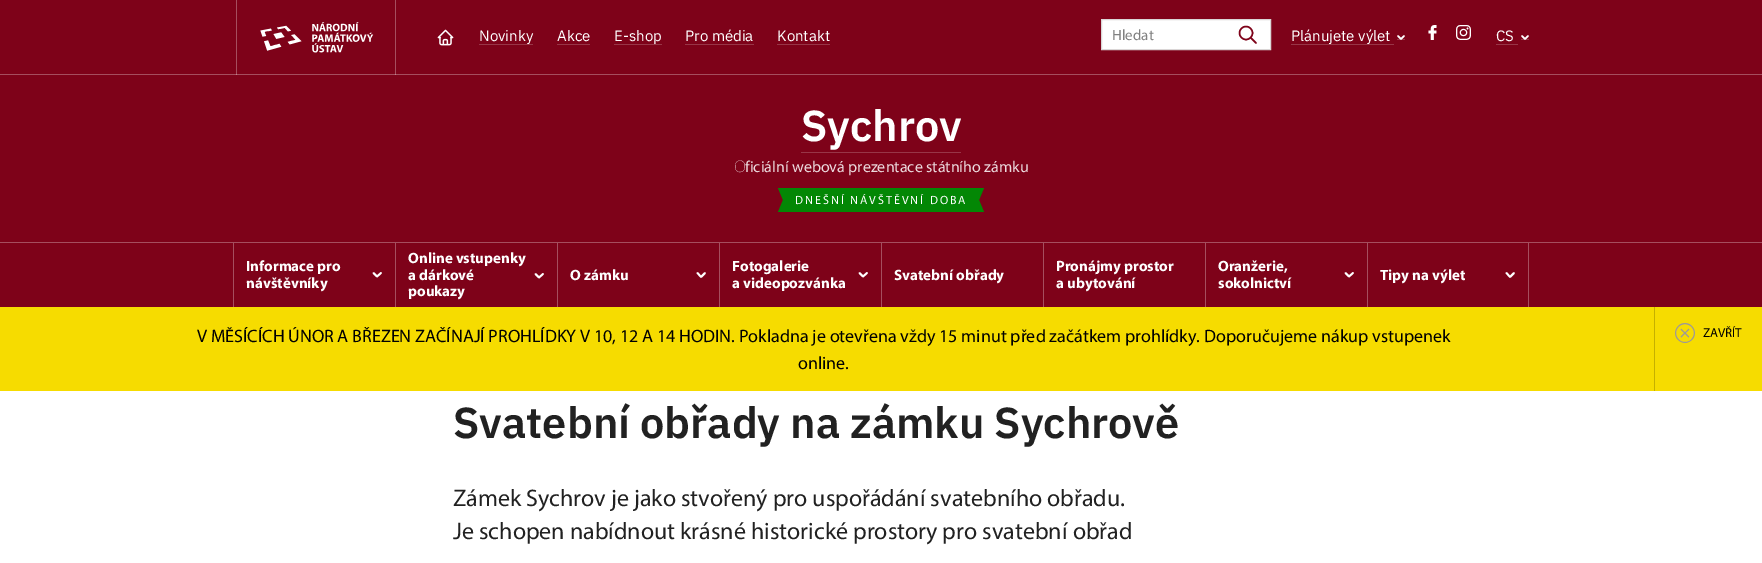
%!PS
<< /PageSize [1762 563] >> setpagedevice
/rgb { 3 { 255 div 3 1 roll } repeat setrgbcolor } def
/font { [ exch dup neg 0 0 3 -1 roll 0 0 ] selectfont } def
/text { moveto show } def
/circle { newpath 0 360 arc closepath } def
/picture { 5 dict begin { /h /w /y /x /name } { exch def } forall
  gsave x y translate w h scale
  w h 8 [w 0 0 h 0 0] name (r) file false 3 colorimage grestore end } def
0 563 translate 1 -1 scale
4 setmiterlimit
255 255 255 rgb
0 0 1762 563 rectfill
126 2 25 rgb
0 0 1762 307 rectfill
165 78 94 rgb
236 0 1 75 rectfill
395 0 1 75 rectfill
0 74 1762 1 rectfill
192 131 142 rgb
236 74 1 1 rectfill
395 74 1 1 rectfill
(img_01.rgb) 260 22 114 31 picture
(img_02.rgb) 437 29 17 17 picture
152 53 71 rgb
479 44 54 1 rectfill
557 44 33 1 rectfill
614 44 48 1 rectfill
685 44 69 1 rectfill
777 44 53 1 rectfill
255 255 255 rgb
1101.5 19.5 moveto 169 0 rlineto 0 30 rlineto -169 0 rlineto closepath gsave fill grestore
218 214 214 rgb
stroke
126 2 25 rgb
1.5 setlinewidth
1246 33 6.5 circle stroke
1 setlinecap
1 setlinejoin
1256 43 moveto -5 -5 rlineto stroke
152 53 71 rgb
1291 44 103 1 rectfill
1397 39 8 1 rectfill
255 255 255 rgb
1404 36 moveto -3 3 rlineto -3 -3 rlineto stroke
(img_03.rgb) 1428 25 9 15 picture
(img_04.rgb) 1456 25 15 15 picture
152 53 71 rgb
1496 44 22 1 rectfill
1521 39 8 1 rectfill
255 255 255 rgb
1528 36 moveto -3 3 rlineto -3 -3 rlineto stroke
165 78 94 rgb
0 242 1762 1 rectfill
152 53 71 rgb
801 152 160 1 rectfill
3 135 5 rgb
788 188 186 24 rectfill
778 188 moveto 10 0 rlineto -5 12 rlineto closepath fill
783 188 5 24 rectfill
788 212 moveto -10 0 rlineto 5 -12 rlineto closepath fill
974 188 moveto 10 0 rlineto -5 12 rlineto closepath 984 212 moveto -10 0 rlineto 5 -12 rlineto closepath fill
974 188 5 24 rectfill
165 78 94 rgb
233 243 1 64 rectfill
255 255 255 rgb
1.8 setlinewidth
381 273 moveto -4 3.5 rlineto -3.5 -3.5 rlineto stroke
165 78 94 rgb
395 243 1 64 rectfill
255 255 255 rgb
543 274 moveto -4 3.5 rlineto -3.5 -3.5 rlineto stroke
165 78 94 rgb
557 243 1 64 rectfill
255 255 255 rgb
705 273 moveto -4 4 rlineto -3.5 -4 rlineto stroke
165 78 94 rgb
719 243 1 64 rectfill
255 255 255 rgb
867 273 moveto -4 3.5 rlineto -3.5 -3.5 rlineto stroke
165 78 94 rgb
881 243 1 64 rectfill
1043 243 1 64 rectfill
1205 243 1 64 rectfill
255 255 255 rgb
1353 273 moveto -4 3.5 rlineto -3.5 -3.5 rlineto stroke
165 78 94 rgb
1528 243 1 64 rectfill
1367 243 1 64 rectfill
255 255 255 rgb
1514 273 moveto -4 4 rlineto -3.5 -4 rlineto stroke
246 220 0 rgb
0 307 1762 84 rectfill
197 176 0 rgb
1654 307 1 84 rectfill
(img_05.rgb) 1675 323 20 20 picture
/IBMPlexSans-Regular 15 font
255 255 255 rgb
(Novinky) 479 41 text
(Akce) 557 41 text
(E-shop) 614 41 text
(Pro média) 685 41 text
(Kontakt) 777 41 text
/Myriad-Regular 15 font
128 128 128 rgb
(Hledat) 1112 40 text
/IBMPlexSans-Regular 15 font
255 255 255 rgb
(Plánujete výlet) 1291 41 text
(CS) 1496 41 text
/IBMPlexSans-SemiBold 43.25 font
(Sychrov) 801 141 text
/NotoSans-Thin 16 font
236 217 221 rgb
(O) 734 172 text
/Myriad-Regular 16 font
(ficiální webová prezentace státního zámku) 745 172 text
/Myriad-Regular 12 font
255 255 255 rgb
795 204 moveto 2 0 (DNEŠNÍ NÁVŠTĚVNÍ DOBA) ashow
/Myriad-Bold 15 font
(Informace pro) 246 271 text
(návštěvníky) 246 288 text
(Online vstupenky) 408 263 text
(a dárkové) 408 280 text
(poukazy) 408 296 text
(O zámku) 570 280 text
(Fotogalerie) 732 271 text
(a videopozvánka) 732 288 text
(Svatební obřady) 894 280 text
(Pronájmy prostor) 1056 271 text
(a ubytování) 1056 288 text
(Oranžerie,) 1218 271 text
(sokolnictví) 1218 288 text
(Tipy na výlet) 1380 280 text
/Myriad-Regular 18 font
1 1 1 rgb
(V MĚSÍCÍCH ÚNOR A BŘEZEN ZAČÍNAJÍ PROHLÍDKY V 10, 12 A 14 HODIN. Pokladna je otevřena vždy 15 minut před začátkem prohlídky. Doporučujeme nákup vstupenek) 197 342 text
(online.) 798 369 text
/Myriad-Regular 13 font
(ZAVŘÍT) 1703 337 text
/IBMPlexSans-SemiBold 43.25 font
33 33 33 rgb
(Svatební obřady na zámku Sychrově) 453 438 text
/Myriad-Regular 24 font
(Zámek Sychrov je jako stvořený pro uspořádání svatebního obřadu.) 453 506 text
(Je schopen nabídnout krásné historické prostory pro svatební obřad) 453 539 text
showpage
